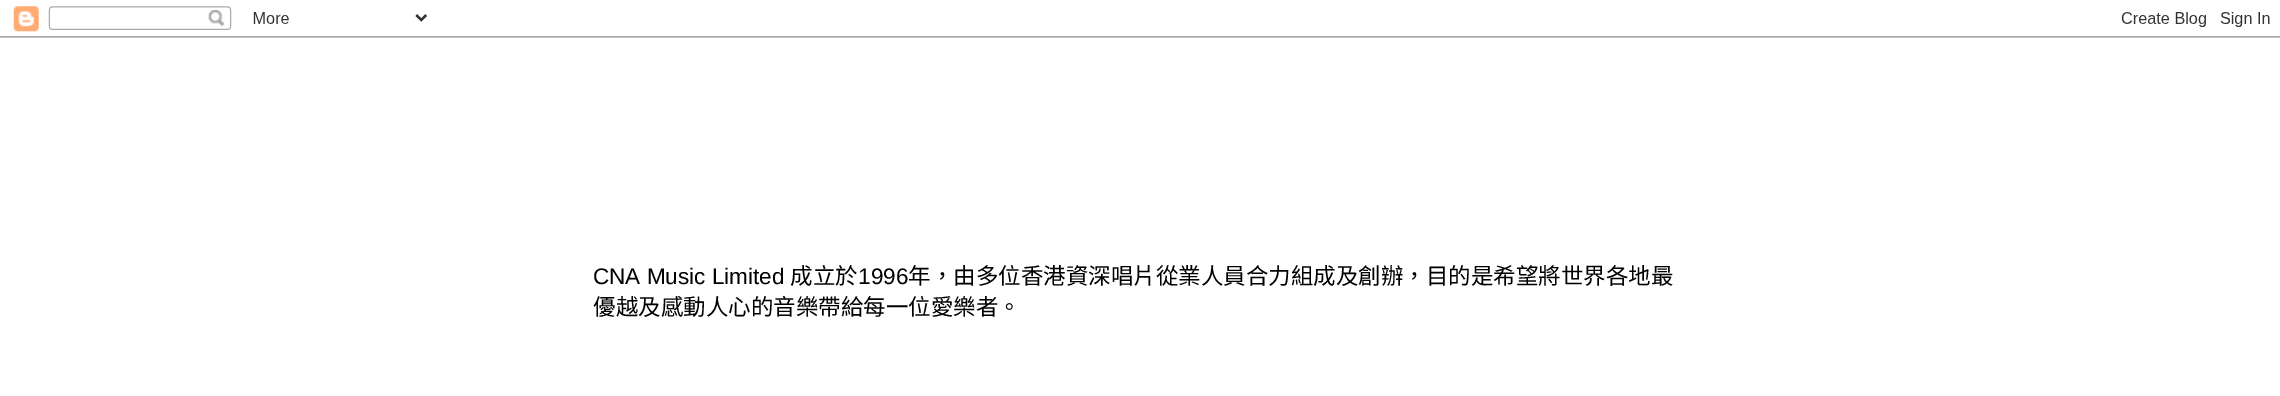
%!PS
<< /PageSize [2280 396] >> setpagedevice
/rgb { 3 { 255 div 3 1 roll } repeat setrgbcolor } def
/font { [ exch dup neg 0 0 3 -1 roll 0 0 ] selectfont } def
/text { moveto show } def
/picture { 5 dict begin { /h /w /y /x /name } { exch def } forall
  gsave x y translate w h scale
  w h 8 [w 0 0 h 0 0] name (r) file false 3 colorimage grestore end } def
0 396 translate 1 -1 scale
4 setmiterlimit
255 255 255 rgb
0 0 2280 396 rectfill
(img_01.rgb) 0 6 2280 32 picture
/LiberationSans-Regular 22.5 font
0 0 0 rgb
(CNA Music Limited) 593 284 text
/NotoSansCJKTC-Regular 22.5 font
(成立於) 790 284 text
/LiberationSans-Regular 22.5 font
(1996) 858 284 text
/NotoSansCJKTC-Regular 22.5 font
(年，由多位香港資深唱片從業人員合力組成及創辦，目的是希望將世界各地最) 908 284 text
(優越及感動人心的音樂帶給每一位愛樂者。) 593 315 text
showpage
